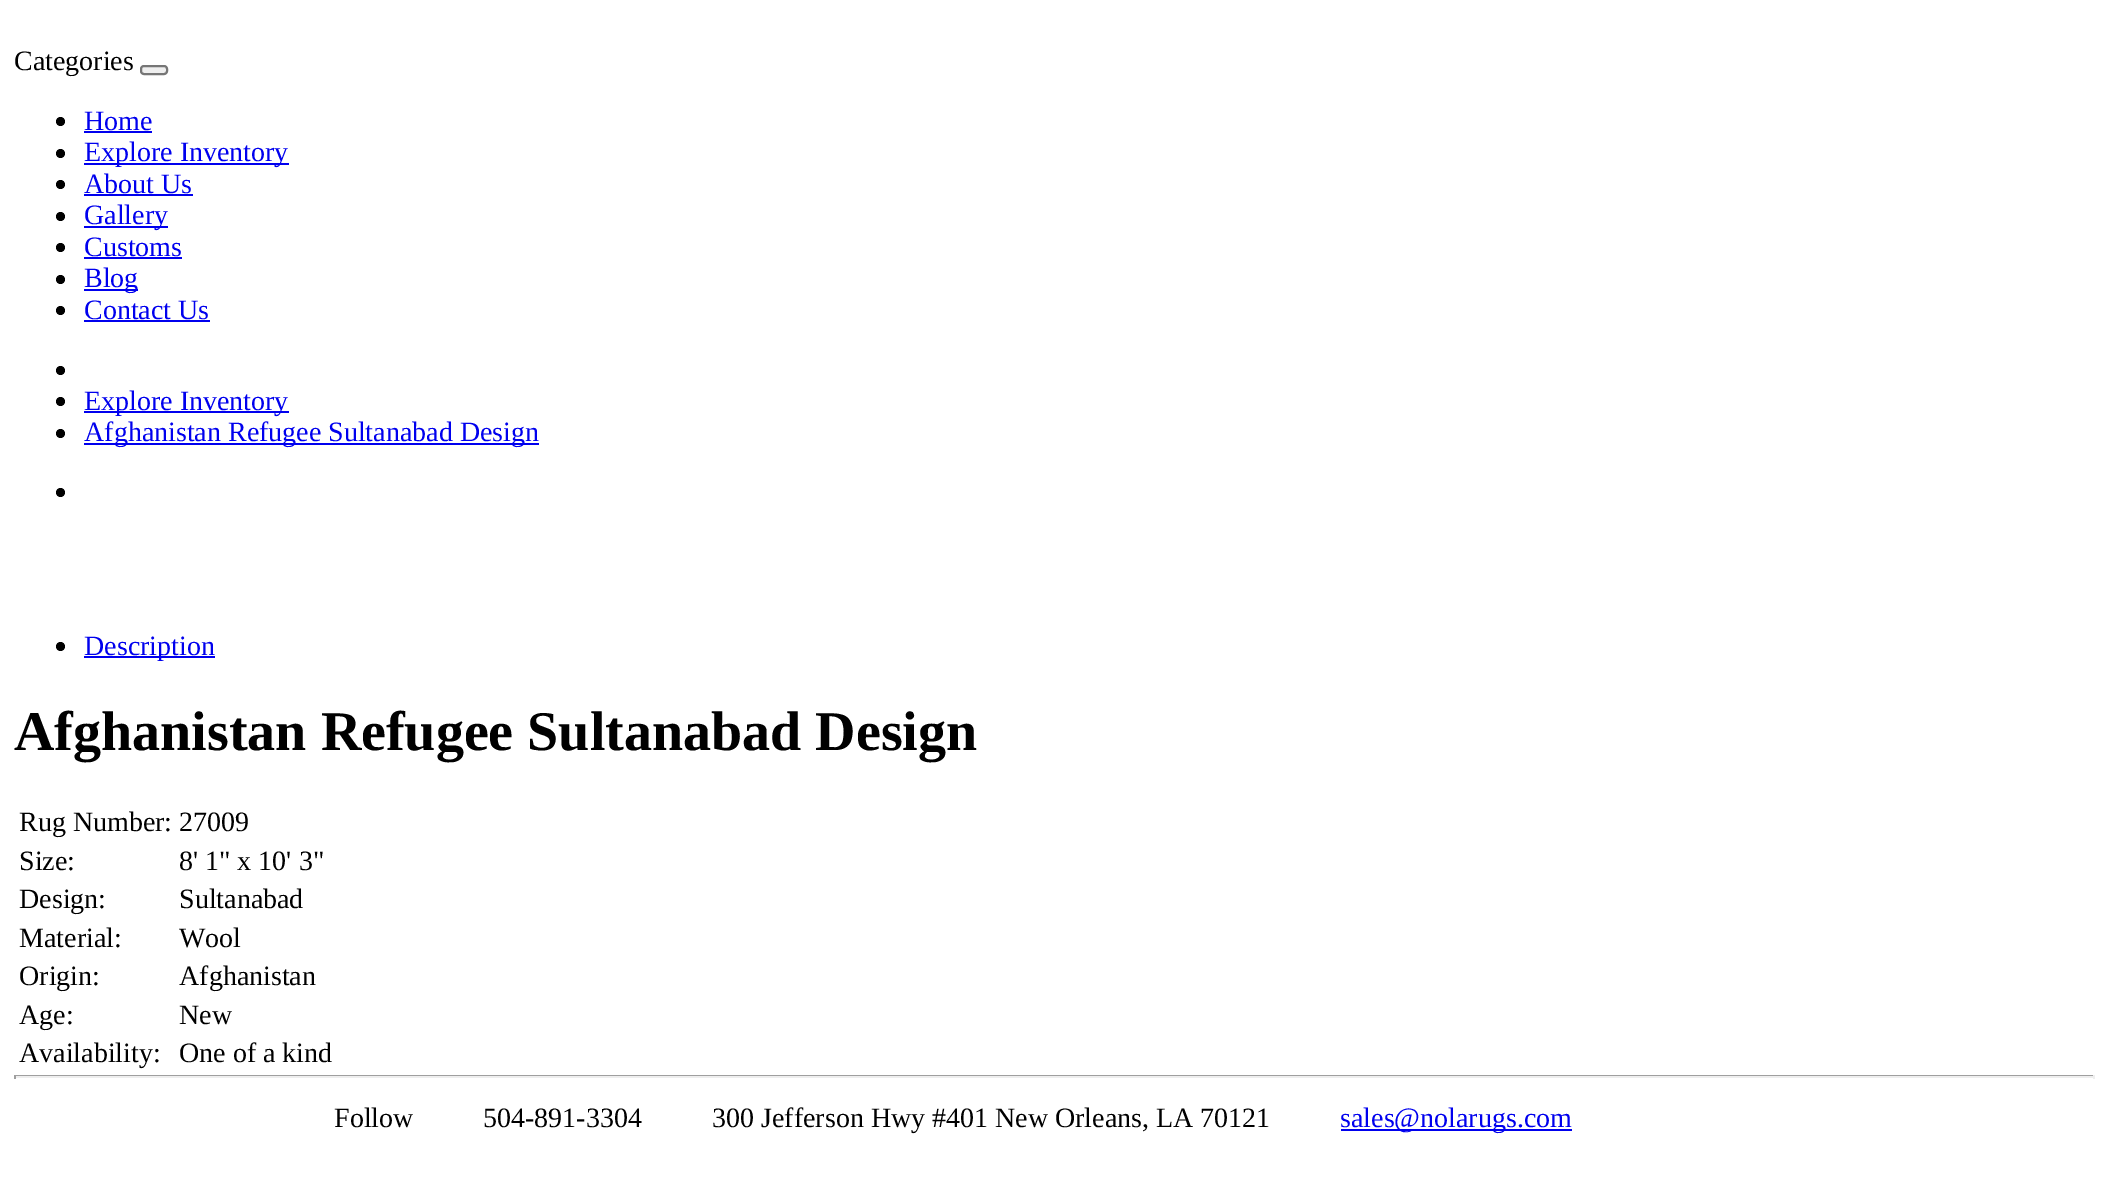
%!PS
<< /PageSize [2108 1186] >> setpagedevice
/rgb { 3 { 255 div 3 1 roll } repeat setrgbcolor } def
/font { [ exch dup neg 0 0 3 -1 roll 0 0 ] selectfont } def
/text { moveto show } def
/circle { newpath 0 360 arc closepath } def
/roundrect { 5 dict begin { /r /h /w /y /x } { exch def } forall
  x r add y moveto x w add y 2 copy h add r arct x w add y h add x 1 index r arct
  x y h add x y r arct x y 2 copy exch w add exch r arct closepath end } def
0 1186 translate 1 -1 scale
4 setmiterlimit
255 255 255 rgb
0 0 2108 1186 rectfill
239 239 239 rgb
141 66 26 8 3 roundrect gsave fill grestore
118 118 118 rgb
2 setlinewidth
stroke
0 0 0 rgb
60.5 121.5 4.5 circle fill
0 0 238 rgb
84 131 68 2 rectfill
0 0 0 rgb
60.5 153.5 4.5 circle fill
0 0 238 rgb
84 163 205 2 rectfill
0 0 0 rgb
60.5 184.5 4.5 circle fill
0 0 238 rgb
84 194 109 2 rectfill
0 0 0 rgb
60.5 216.5 4.5 circle fill
0 0 238 rgb
84 226 84 2 rectfill
0 0 0 rgb
60.5 247.5 4.5 circle fill
0 0 238 rgb
84 257 98 2 rectfill
0 0 0 rgb
60.5 279.5 4.5 circle fill
0 0 238 rgb
84 289 54 2 rectfill
0 0 0 rgb
60.5 310.5 4.5 circle fill
0 0 238 rgb
84 320 126 2 rectfill
0 0 0 rgb
60.5 370.5 4.5 circle fill
60.5 401.5 4.5 circle fill
0 0 238 rgb
84 411 205 2 rectfill
0 0 0 rgb
60.5 433.5 4.5 circle fill
0 0 238 rgb
84 443 455 2 rectfill
0 0 0 rgb
60.5 492.5 4.5 circle fill
60.5 646.5 4.5 circle fill
0 0 238 rgb
84 656 131 2 rectfill
159 159 159 rgb
14 1075 2081 1 rectfill
238 238 238 rgb
2093 1075 2 4 rectfill
14 1076 2081 2 rectfill
159 159 159 rgb
14 1075 2 4 rectfill
0 0 238 rgb
1341 1129 231 2 rectfill
/LiberationSerif-Regular 28 font
0 0 0 rgb
(Categories) 14 70 text
0 0 238 rgb
(Home) 84 130 text
(Explore Inventory) 84 161 text
(About Us) 84 193 text
(Gallery) 84 224 text
(Customs) 84 256 text
(Blog) 84 287 text
(Contact Us) 84 319 text
(Explore Inventory) 84 410 text
(Afghanistan Refugee Sultanabad Design) 84 441 text
(Description) 84 655 text
/LiberationSerif-Bold 56 font
0 0 0 rgb
(Afghanistan Refugee Sultanabad Design) 14 750 text
/LiberationSerif-Regular 28 font
(Rug Number: 27009) 19 831 text
(Size:) 19 870 text
(8' 1" x 10' 3") 179 870 text
(Design:) 19 908 text
(Sultanabad) 179 908 text
(Material:) 19 947 text
(Wool) 179 947 text
(Origin:) 19 985 text
(Afghanistan) 179 985 text
(Age:) 19 1024 text
(New) 179 1024 text
(Availability:) 19 1062 text
(One of a kind) 179 1062 text
(Follow) 334 1127 text
(504-891-3304) 483 1127 text
(300 Jefferson Hwy #401 New Orleans, LA 70121) 712 1127 text
0 0 238 rgb
(sales@nolarugs.com) 1340 1127 text
showpage
